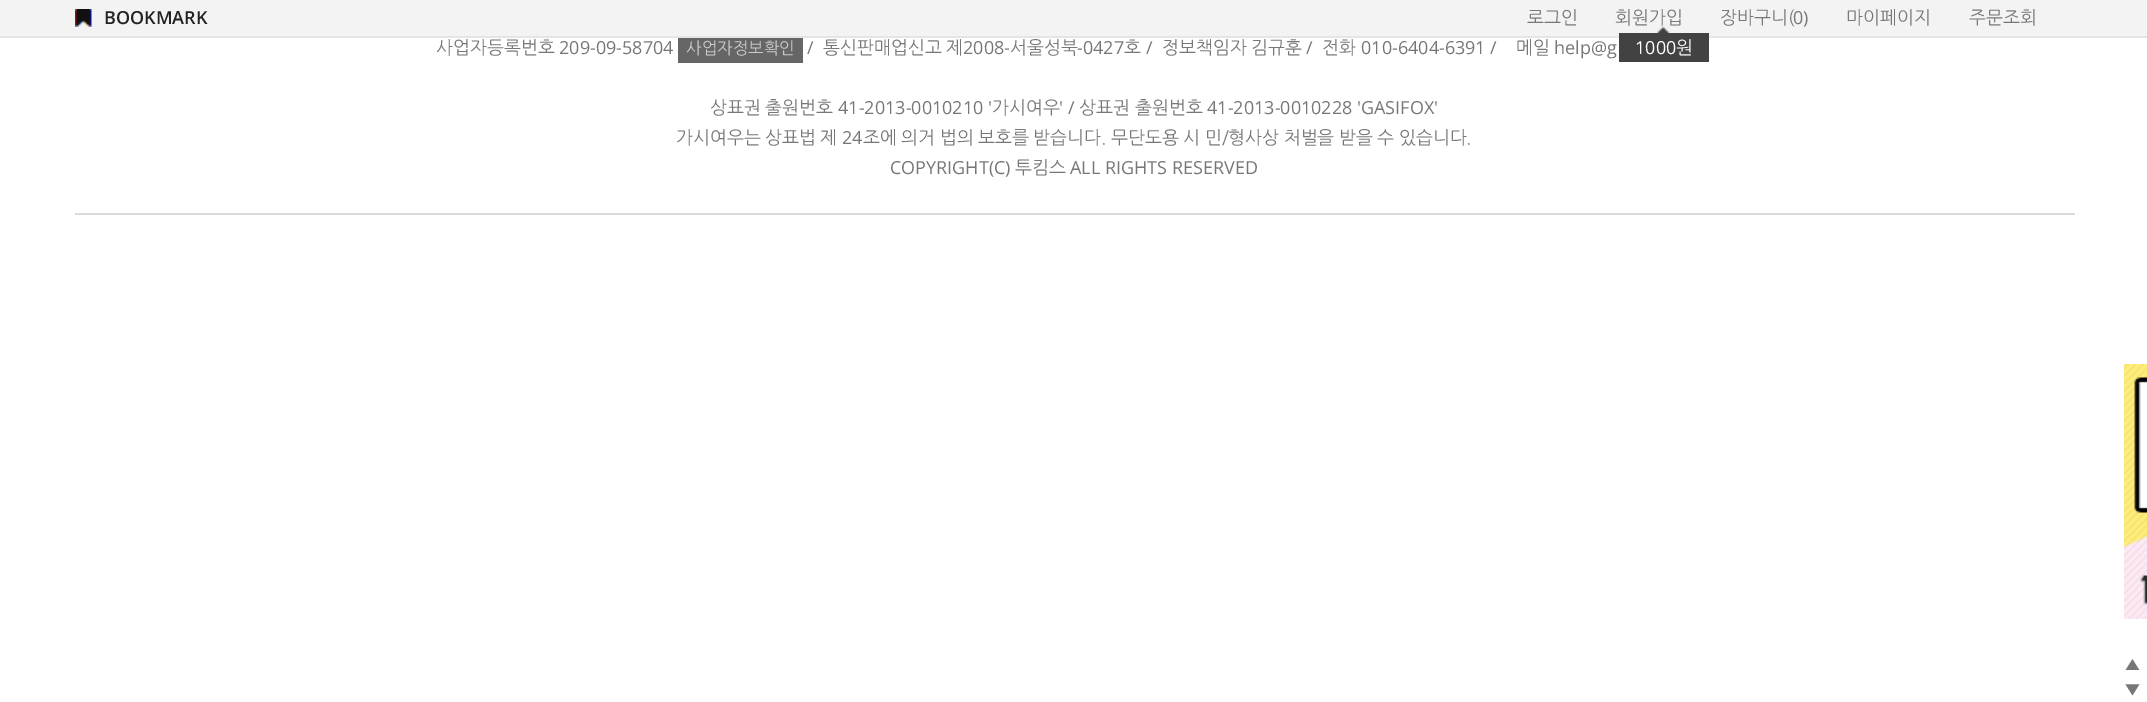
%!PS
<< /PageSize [2147 702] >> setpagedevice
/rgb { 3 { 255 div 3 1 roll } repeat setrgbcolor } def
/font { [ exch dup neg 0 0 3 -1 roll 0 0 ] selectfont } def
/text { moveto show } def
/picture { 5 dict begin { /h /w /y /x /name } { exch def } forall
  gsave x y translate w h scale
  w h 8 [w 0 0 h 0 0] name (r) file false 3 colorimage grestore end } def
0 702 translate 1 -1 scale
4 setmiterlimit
255 255 255 rgb
0 0 2147 702 rectfill
243 243 243 rgb
0 0 2147 36 rectfill
229 229 229 rgb
0 36 2147 2 rectfill
(img_01.rgb) 75 9 17 18 picture
66 66 66 rgb
1619 33 90 29 rectfill
(img_02.rgb) 1657 26 13 7 picture
218 218 218 rgb
75 213 2000 2 rectfill
102 102 102 rgb
678 38 125 25 rectfill
(img_03.rgb) 2124 364 23 255 picture
/OpenSans-SemiBold 18 font
34 34 34 rgb
(BOOKMARK) 104 24 text
/NanumGothic-Regular 18 font
119 119 119 rgb
(로그인) 1527 24 text
(회원가입) 1615 24 text
/OpenSans-Regular 18 font
255 255 255 rgb
(1000) 1635 54 text
/NanumGothic-Regular 18 font
(원) 1676 54 text
119 119 119 rgb
(장바구니\() 1720 24 text
/OpenSans-Regular 18 font
(0\)) 1793 24 text
/NanumGothic-Regular 18 font
(마이페이지) 1846 24 text
(주문조회) 1969 24 text
(사업자등록번호) 436 54 text
/OpenSans-Regular 18 font
(209-09-58704) 559 54 text
/NanumGothic-Regular 16.5 font
204 204 204 rgb
(사업자정보확인) 686 54 text
/OpenSans-Regular 18 font
119 119 119 rgb
(/) 807 54 text
/NanumGothic-Regular 18 font
(통신판매업신고) 823 54 text
(제) 946 54 text
/OpenSans-Regular 18 font
(2008-) 963 54 text
/NanumGothic-Regular 18 font
(서울성북) 1010 54 text
/OpenSans-Regular 18 font
(-0427) 1077 54 text
/NanumGothic-Regular 18 font
(호) 1124 54 text
/OpenSans-Regular 18 font
(/) 1146 54 text
/NanumGothic-Regular 18 font
(정보책임자) 1162 54 text
(김규훈) 1251 54 text
/OpenSans-Regular 18 font
(/) 1306 54 text
/NanumGothic-Regular 18 font
(전화) 1322 54 text
/OpenSans-Regular 18 font
(010-6404-6391 /) 1361 54 text
/NanumGothic-Regular 18 font
(메일) 1516 54 text
/OpenSans-Regular 18 font
(help@g) 1554 54 text
/NanumGothic-Regular 18 font
(상표권) 710 114 text
(출원번호) 765 114 text
/OpenSans-Regular 18 font
(41-2013-0010210 ') 838 114 text
/NanumGothic-Regular 18 font
(가시여우) 992 114 text
/OpenSans-Regular 18 font
(' /) 1059 114 text
/NanumGothic-Regular 18 font
(상표권) 1079 114 text
(출원번호) 1135 114 text
/OpenSans-Regular 18 font
(41-2013-0010228 'GASIFOX') 1207 114 text
/NanumGothic-Regular 18 font
676 144 moveto -0.5 0 32 (가시여우는 상표법 제) widthshow
/OpenSans-Regular 18 font
(24) 842 144 text
/NanumGothic-Regular 18 font
863 144 moveto -0.5 0 32 (조에 의거 법의 보호를 받습니다.) widthshow
1111 144 moveto -0.5 0 32 (무단도용 시 민/형사상 처벌을 받을 수 있습니다.) widthshow
/OpenSans-Regular 18 font
(COPYRIGHT\(C\)) 890 174 text
/NanumGothic-Regular 18 font
(투킴스) 1015 174 text
/OpenSans-Regular 18 font
(ALL RIGHTS RESERVED) 1070 174 text
/NanumGothic-Bold 18 font
(▲) 2124 671 text
(▼) 2124 696 text
showpage
